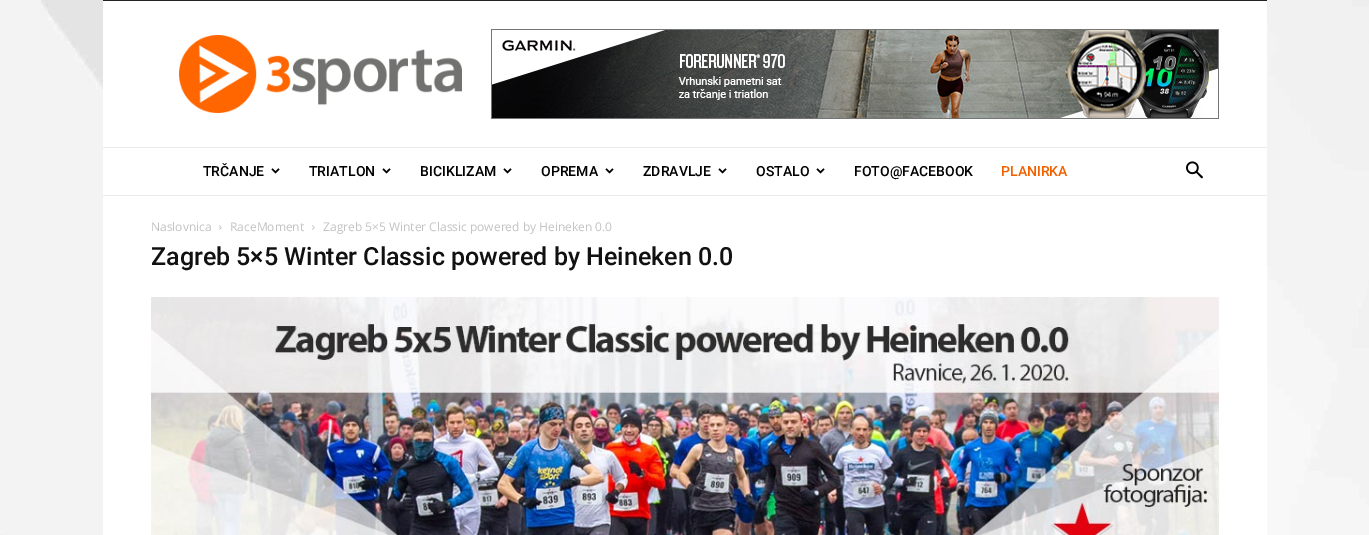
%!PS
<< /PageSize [1369 535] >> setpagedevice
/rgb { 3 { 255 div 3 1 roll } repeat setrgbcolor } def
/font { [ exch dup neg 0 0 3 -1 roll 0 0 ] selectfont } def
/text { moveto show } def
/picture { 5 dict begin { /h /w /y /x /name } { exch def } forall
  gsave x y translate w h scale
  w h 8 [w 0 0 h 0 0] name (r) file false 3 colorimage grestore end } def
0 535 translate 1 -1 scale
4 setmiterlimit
255 255 255 rgb
0 0 1369 535 rectfill
(img_01.rgb) 0 0 1369 535 picture
34 34 34 rgb
103 0 1164 1 rectfill
255 255 255 rgb
103 1 1164 146 rectfill
(img_02.rgb) 179 35 283 78 picture
(img_03.rgb) 491 29 728 90 picture
103 148 1164 47 rectfill
235 235 235 rgb
103 147 1164 1 rectfill
(img_04.rgb) 271 168 9 6 picture
(img_04.rgb) 382 168 9 6 picture
(img_04.rgb) 503 168 9 6 picture
(img_04.rgb) 605 168 9 6 picture
(img_04.rgb) 718 168 9 6 picture
(img_04.rgb) 816 168 9 6 picture
(img_05.rgb) 1186 161 17 18 picture
103 195 1164 1 rectfill
255 255 255 rgb
103 196 1164 339 rectfill
(img_06.rgb) 219 225 3 5 picture
(img_06.rgb) 312 225 3 5 picture
(img_07.rgb) 151 297 1068 238 picture
/Roboto-Medium 14 font
0 0 0 rgb
(TRČANJE) 203 176 text
(TRIATLON) 309 176 text
(BICIKLIZAM) 420 176 text
(OPREMA) 541 176 text
(ZDRAVLJE) 643 176 text
(OSTALO) 756 176 text
(FOTO@FACEBOOK) 854 176 text
242 97 0 rgb
(PLANIRKA) 1001 176 text
/OpenSans-Regular 12 font
195 195 195 rgb
(Naslovnica) 151 231 text
(RaceMoment) 230 231 text
(Zagreb 5×5 Winter Classic powered by Heineken 0.0) 323 231 text
/Roboto-Medium 25 font
17 17 17 rgb
(Zagreb 5×5 Winter Classic powered by Heineken 0.0) 151 265 text
showpage
